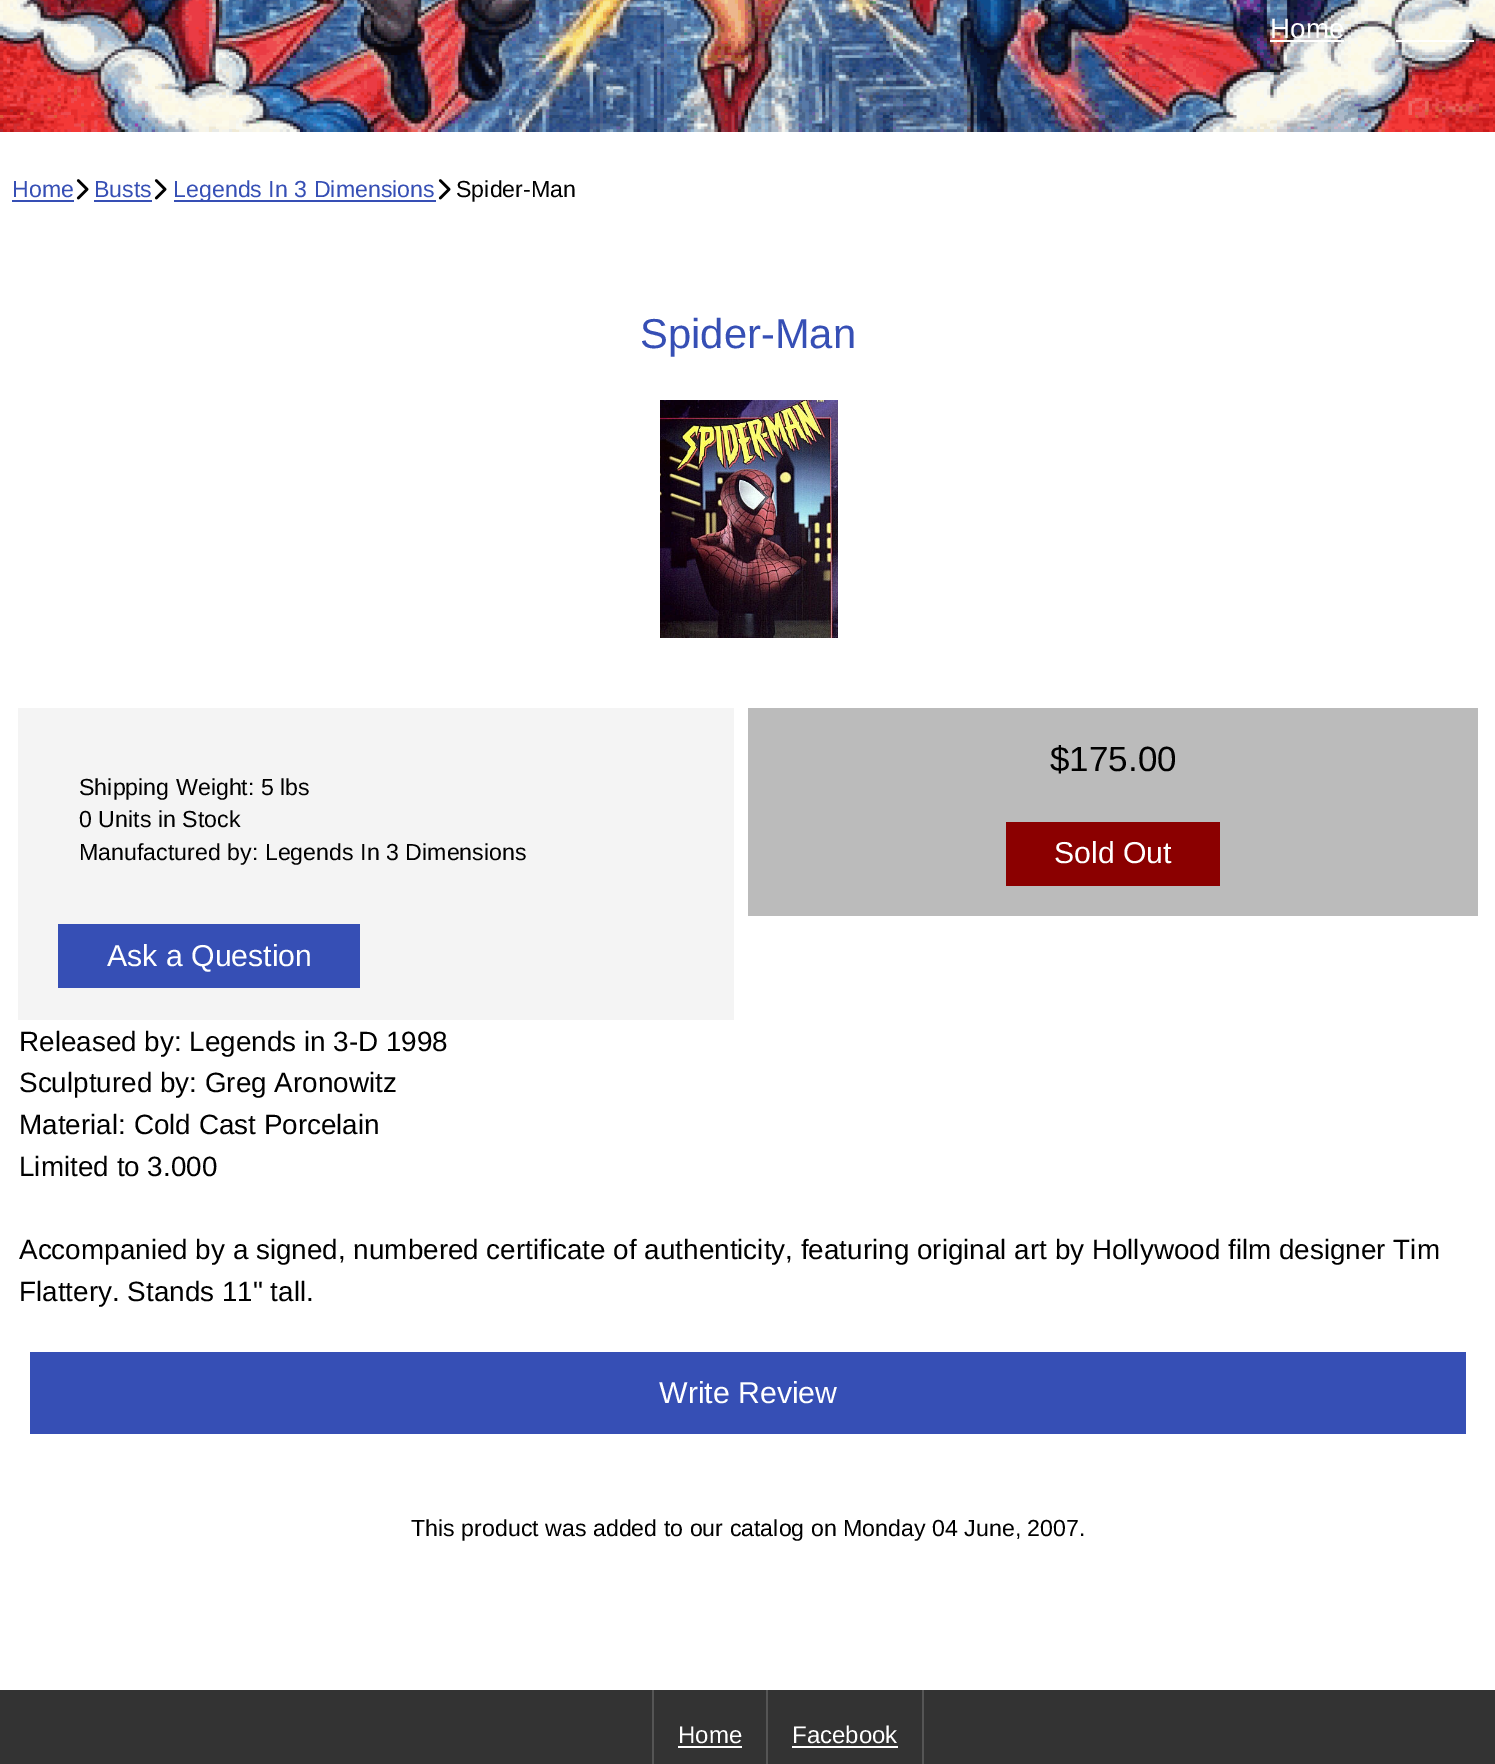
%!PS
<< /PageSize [1495 1764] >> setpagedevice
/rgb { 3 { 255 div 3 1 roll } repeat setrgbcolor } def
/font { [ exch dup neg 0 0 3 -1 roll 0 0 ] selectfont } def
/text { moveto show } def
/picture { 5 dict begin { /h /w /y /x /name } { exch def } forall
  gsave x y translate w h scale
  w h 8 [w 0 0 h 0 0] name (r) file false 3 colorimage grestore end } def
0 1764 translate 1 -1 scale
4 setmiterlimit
255 255 255 rgb
0 0 1495 1764 rectfill
(img_01.rgb) 0 0 1495 132 picture
1270 40 74 2 rectfill
1396 40 78 2 rectfill
54 79 181 rgb
12 200 62 2 rectfill
(img_02.rgb) 76 179 13 21 picture
94 200 58 2 rectfill
(img_02.rgb) 154 179 13 21 picture
174 200 262 2 rectfill
(img_02.rgb) 438 179 13 21 picture
(img_03.rgb) 660 400 178 238 picture
244 244 244 rgb
18 708 716 312 rectfill
54 79 181 rgb
58 924 302 64 rectfill
187 187 187 rgb
748 708 730 208 rectfill
139 0 0 rgb
1006 822 214 64 rectfill
54 79 181 rgb
30 1352 1436 82 rectfill
51 51 51 rgb
0 1690 1495 74 rectfill
85 85 85 rgb
652 1690 2 74 rectfill
255 255 255 rgb
678 1746 64 2 rectfill
85 85 85 rgb
922 1690 2 74 rectfill
766 1690 2 74 rectfill
255 255 255 rgb
792 1746 106 2 rectfill
/LiberationSans-Regular 27.85 font
(Home) 1270 38 text
/LiberationSans-Regular 23.2 font
54 79 181 rgb
(Home) 12 197 text
(Busts) 94 197 text
(Legends In 3 Dimensions) 173 197 text
0 0 0 rgb
(Spider-Man) 456 197 text
/LiberationSans-Regular 41.75 font
54 79 181 rgb
(Spider-Man) 640 348 text
/LiberationSans-Regular 23.2 font
0 0 0 rgb
(Shipping Weight: 5 lbs) 79 795 text
(0 Units in Stock) 79 827 text
(Manufactured by: Legends In 3 Dimensions) 79 860 text
/LiberationSans-Regular 30.25 font
255 255 255 rgb
(Ask a Question) 107 966 text
/LiberationSans-Regular 35 font
0 0 0 rgb
($175.00) 1050 771 text
/LiberationSans-Regular 30.25 font
255 255 255 rgb
(Sold Out) 1054 863 text
/LiberationSans-Regular 27.85 font
0 0 0 rgb
(Released by: Legends in 3-D 1998) 19 1051 text
(Sculptured by: Greg Aronowitz) 19 1092 text
(Material: Cold Cast Porcelain) 19 1134 text
(Limited to 3.000) 19 1176 text
(Accompanied by a signed, numbered certificate of authenticity, featuring original art by Hollywood film designer Tim) 19 1259 text
(Flattery. Stands 11" tall.) 19 1301 text
/LiberationSans-Regular 30.25 font
255 255 255 rgb
(Write Review) 659 1403 text
/LiberationSans-Regular 23.2 font
0 0 0 rgb
(This product was added to our catalog on Monday 04 June, 2007.) 411 1536 text
/LiberationSans-Regular 24 font
255 255 255 rgb
(Home) 678 1743 text
(Facebook) 792 1743 text
showpage
